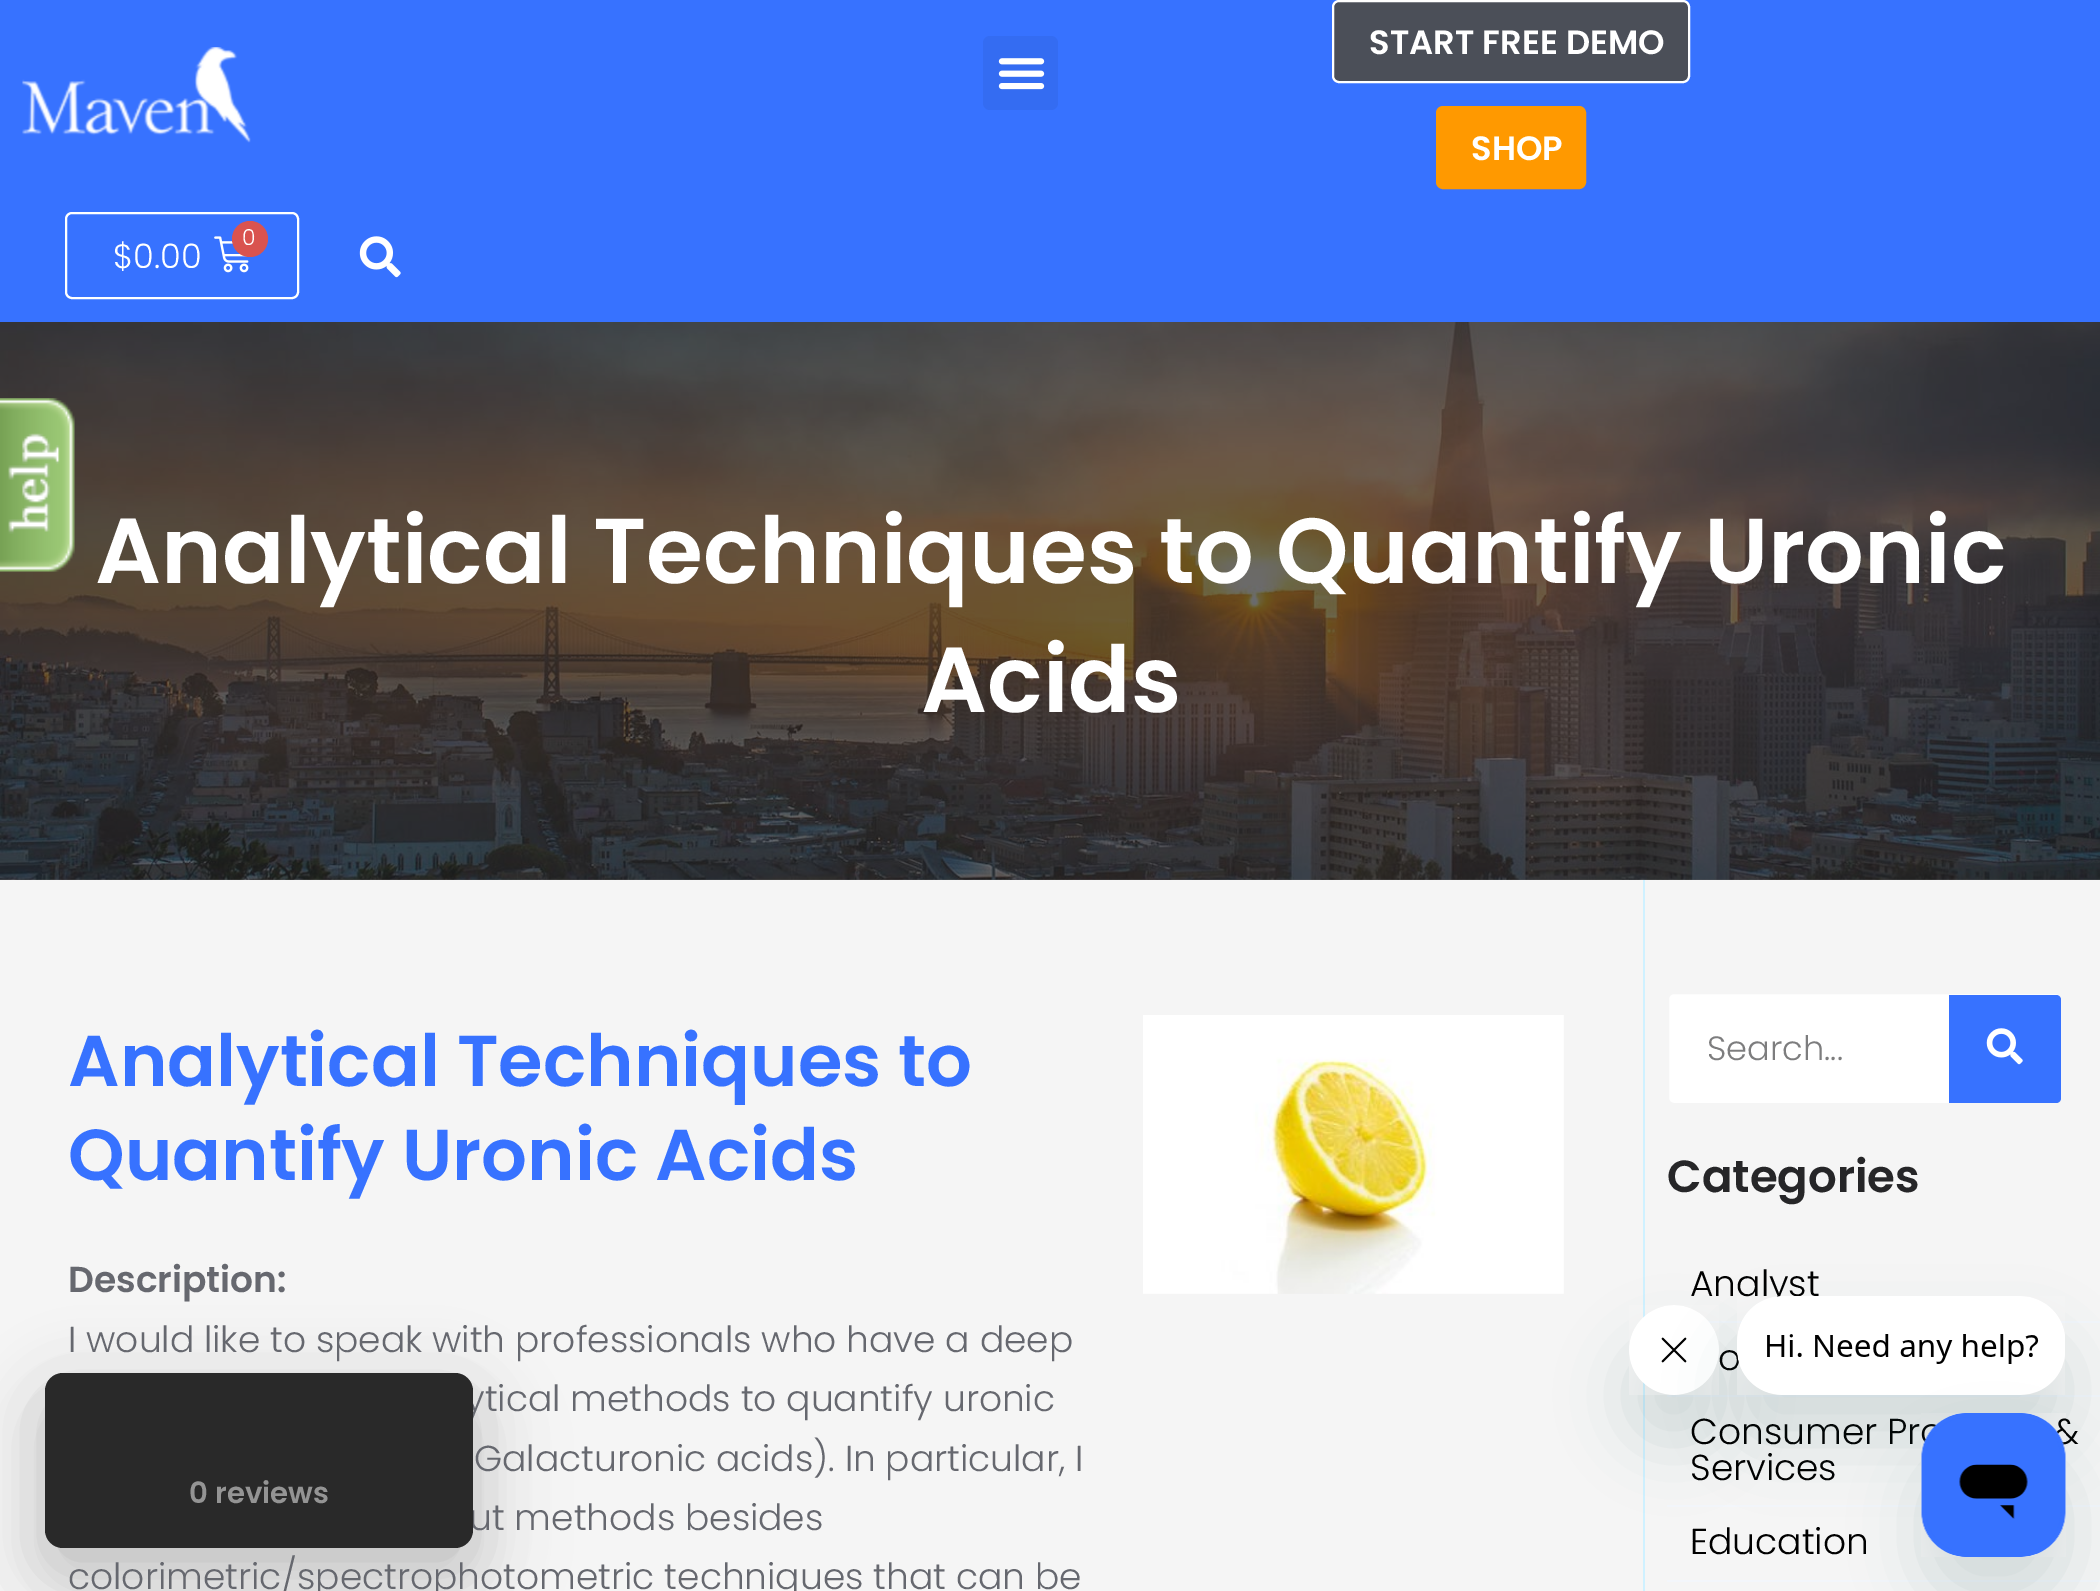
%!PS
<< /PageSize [2100 1591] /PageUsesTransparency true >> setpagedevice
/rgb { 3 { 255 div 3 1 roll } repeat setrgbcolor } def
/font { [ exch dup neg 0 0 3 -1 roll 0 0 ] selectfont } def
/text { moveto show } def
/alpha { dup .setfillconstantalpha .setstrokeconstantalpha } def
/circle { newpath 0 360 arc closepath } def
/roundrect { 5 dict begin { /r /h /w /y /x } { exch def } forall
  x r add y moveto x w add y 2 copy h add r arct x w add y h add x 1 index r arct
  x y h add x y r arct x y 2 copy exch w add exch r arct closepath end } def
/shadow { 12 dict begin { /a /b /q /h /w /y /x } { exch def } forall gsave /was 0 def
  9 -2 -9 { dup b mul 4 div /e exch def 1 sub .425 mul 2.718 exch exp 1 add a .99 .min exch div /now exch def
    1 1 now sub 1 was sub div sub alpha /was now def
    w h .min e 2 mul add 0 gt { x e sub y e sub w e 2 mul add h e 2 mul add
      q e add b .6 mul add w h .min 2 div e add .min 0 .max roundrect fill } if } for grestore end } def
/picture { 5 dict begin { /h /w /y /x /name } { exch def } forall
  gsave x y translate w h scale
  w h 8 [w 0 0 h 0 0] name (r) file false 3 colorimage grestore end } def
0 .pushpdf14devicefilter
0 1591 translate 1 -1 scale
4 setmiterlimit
245 245 245 rgb
0 0 2100 1591 rectfill
(img_06.rgb) 0 322 2100 558 picture
(img_01.rgb) 0 398 75 174 picture
55 114 255 rgb
0 0 2100 322 rectfill
(img_02.rgb) 22 47 229 96 picture
52 108 242 rgb
983 36 75 74 7 roundrect fill
(img_03.rgb) 998 58 47 32 picture
75 79 88 rgb
1333 1 356 81 6 roundrect gsave fill grestore
255 255 255 rgb
2 setlinewidth
stroke
255 153 0 rgb
1437 107 148 81 6 roundrect gsave fill grestore
stroke
255 255 255 rgb
66 213 232 85 6 roundrect stroke
(img_04.rgb) 214 236 35 37 picture
217 83 79 rgb
250 239 18 circle fill
(img_05.rgb) 359 236 42 42 picture
207 241 255 rgb
1643 880 2 711 rectfill
(img_07.rgb) 1143 1015 421 279 picture
255 255 255 rgb
1668 993 394 111 6 roundrect gsave fill grestore
245 245 245 rgb
stroke
55 114 255 rgb
1949 995 moveto 107 0 rlineto 3 0 5 2 5 5 rcurveto 0 98 rlineto 0 3 -2 5 -5 5 rcurveto -107 0 rlineto closepath fill
(img_08.rgb) 1986 1028 37 37 picture
243 246 251 rgb
1708 1321 392 2 rectfill
1667 1395 433 2 rectfill
1667 1505 433 2 rectfill
1667 1580 433 2 rectfill
0 0 0 rgb
45 1395 428 176 18 34 0.15 shadow
45 1406 428 176 18 45 0.1 shadow
23 73 77 rgb
1629 1350 90 90 45 34 0.15 shadow
/Poppins-SemiBold 33.75 font
255 255 255 rgb
(START FREE DEMO) 1369 54 text
(SHOP) 1471 160 text
/Poppins-Light 22 font
(0) 242 245 text
/Poppins-Light 33.75 font
($0.00) 113 268 text
/Poppins-SemiBold 92.25 font
(Analytical Techniques to Quantify Uronic) 95 583 text
(Acids) 921 712 text
/Poppins-SemiBold 72 font
55 114 255 rgb
(Analytical Techniques to) 68 1086 text
(Quantify Uronic Acids) 68 1180 text
/Poppins-SemiBold 36 font
102 104 111 rgb
(Description:) 68 1292 text
/Poppins-Light 36 font
(I would like to speak with professionals who have a deep) 68 1352 text
(ytical methods to quantify uronic) 465 1411 text
(Galacturonic acids\). In particular, I) 474 1471 text
(ut methods besides) 469 1530 text
(colorimetric/spectrophotometric techniques that can be) 68 1589 text
/Poppins-Light 33.75 font
125 125 126 rgb
(Search...) 1707 1060 text
/Poppins-SemiBold 45 font
38 38 40 rgb
(Categories) 1667 1192 text
/Poppins-Light 36 font
0 0 0 rgb
(Analyst) 1690 1296 text
(o) 1718 1370 text
(Consumer Pr) 1690 1444 text
(&) 2053 1444 text
(Services) 1690 1480 text
(Education) 1690 1554 text
41 41 41 rgb
45 1373 428 175 18 roundrect fill
/Poppins-SemiBold 29.25 font
148 148 148 rgb
(0 reviews) 189 1503 text
(img_10.rgb) 1629 1305 90 90 picture
23 73 77 rgb
1737 1341 329 99 45 34 0.15 shadow
(img_09.rgb) 1737 1296 328 99 picture
1922 1458 144 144 45 34 0.15 shadow
(img_11.rgb) 1921 1413 145 144 picture
.poppdf14devicefilter showpage
